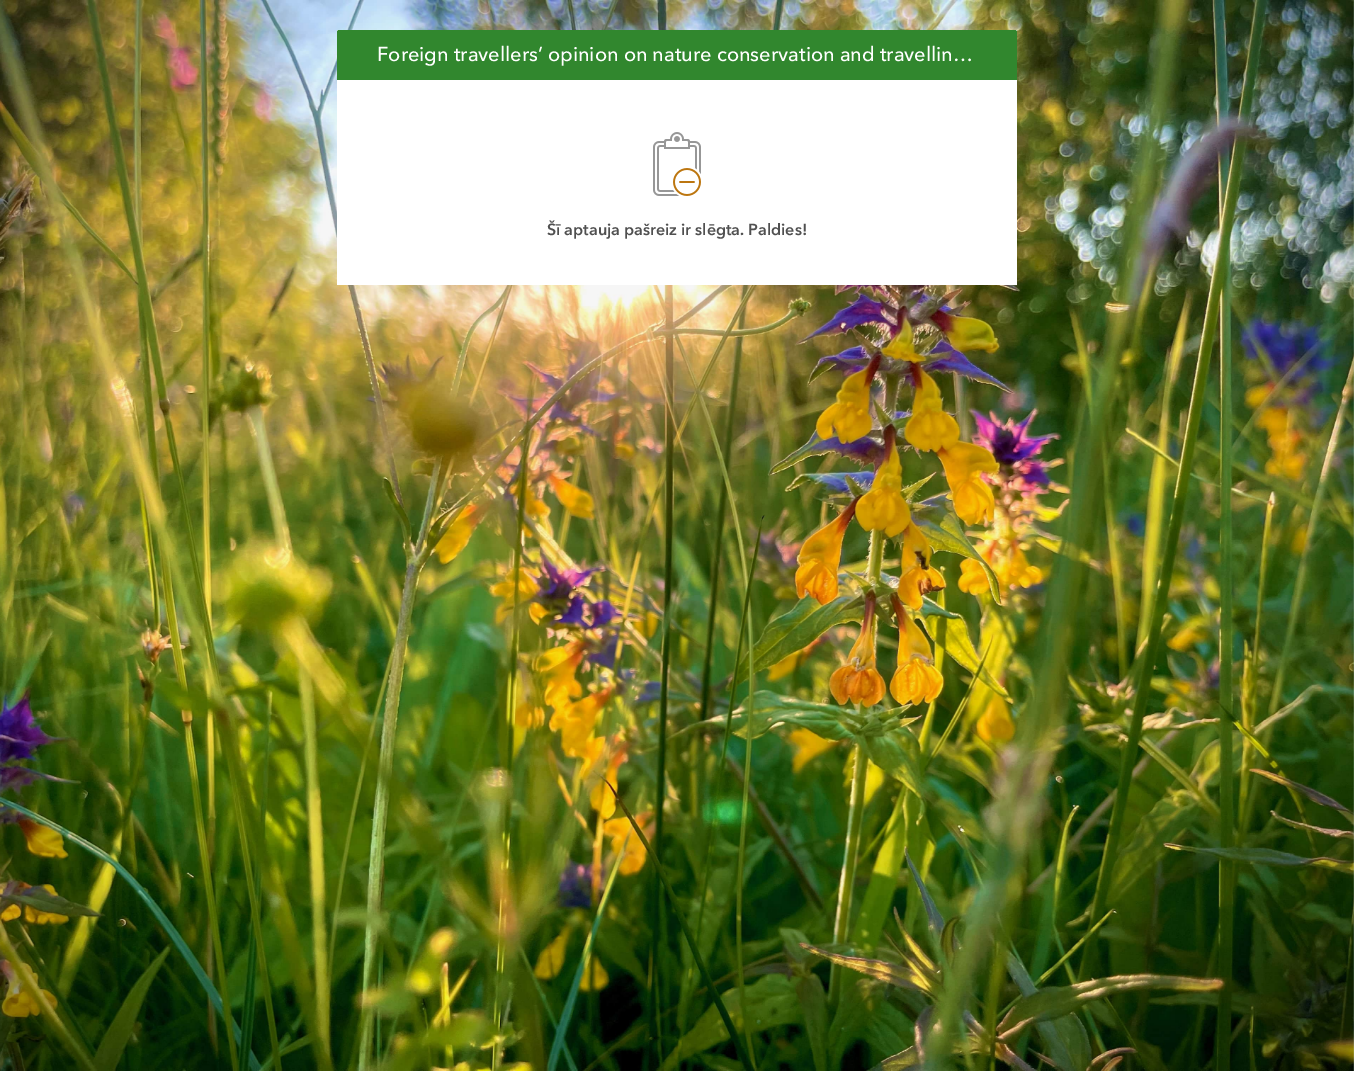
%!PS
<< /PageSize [1354 1071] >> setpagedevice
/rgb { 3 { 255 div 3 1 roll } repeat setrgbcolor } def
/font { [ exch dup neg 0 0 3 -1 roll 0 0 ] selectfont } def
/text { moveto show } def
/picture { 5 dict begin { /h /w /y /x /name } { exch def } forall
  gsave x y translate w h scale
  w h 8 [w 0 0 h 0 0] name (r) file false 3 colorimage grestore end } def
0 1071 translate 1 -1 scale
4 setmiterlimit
255 255 255 rgb
0 0 1354 1071 rectfill
(img_01.rgb) 0 0 1354 1071 picture
337 30 680 255 rectfill
49 135 46 rgb
339 30 moveto 676 0 rlineto 1 0 2 1 2 2 rcurveto 0 48 rlineto -680 0 rlineto 0 -48 rlineto 0 -1 1 -2 2 -2 rcurveto closepath fill
(img_02.rgb) 653 132 48 64 picture
/AvenirNext-Medium 20 font
255 255 255 rgb
(Foreign travellers’ opinion on nature conservation and travellin…) 377 61 text
/AvenirNext-SemiBold 16 font
80 80 80 rgb
(Šī aptauja pašreiz ir slēgta. Paldies!) 547 235 text
showpage
